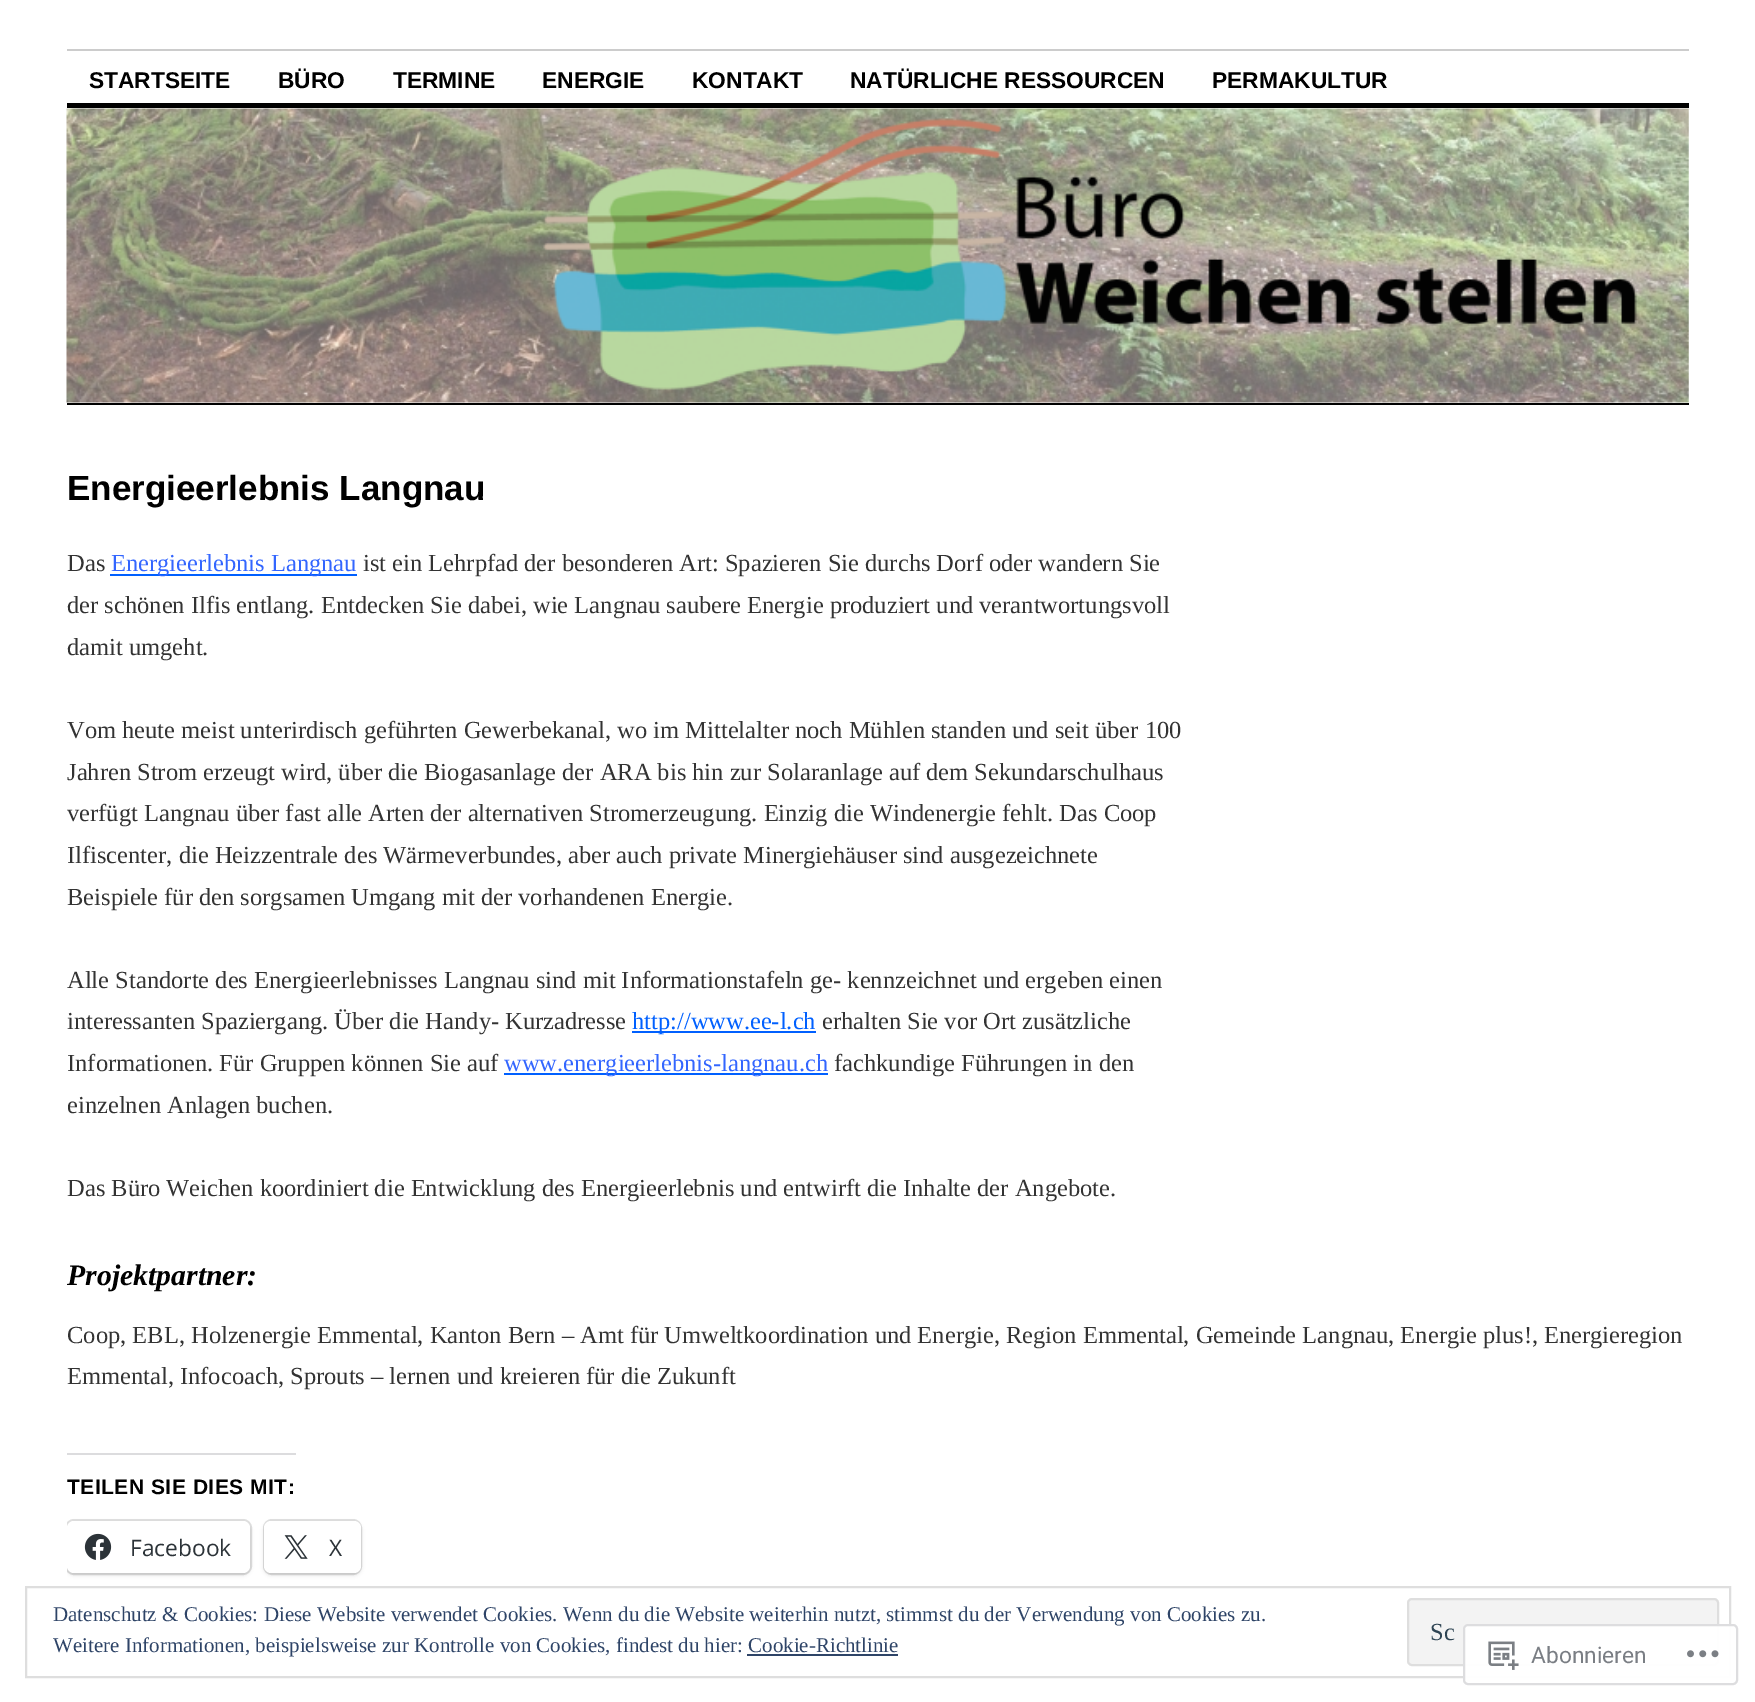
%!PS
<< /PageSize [1755 1702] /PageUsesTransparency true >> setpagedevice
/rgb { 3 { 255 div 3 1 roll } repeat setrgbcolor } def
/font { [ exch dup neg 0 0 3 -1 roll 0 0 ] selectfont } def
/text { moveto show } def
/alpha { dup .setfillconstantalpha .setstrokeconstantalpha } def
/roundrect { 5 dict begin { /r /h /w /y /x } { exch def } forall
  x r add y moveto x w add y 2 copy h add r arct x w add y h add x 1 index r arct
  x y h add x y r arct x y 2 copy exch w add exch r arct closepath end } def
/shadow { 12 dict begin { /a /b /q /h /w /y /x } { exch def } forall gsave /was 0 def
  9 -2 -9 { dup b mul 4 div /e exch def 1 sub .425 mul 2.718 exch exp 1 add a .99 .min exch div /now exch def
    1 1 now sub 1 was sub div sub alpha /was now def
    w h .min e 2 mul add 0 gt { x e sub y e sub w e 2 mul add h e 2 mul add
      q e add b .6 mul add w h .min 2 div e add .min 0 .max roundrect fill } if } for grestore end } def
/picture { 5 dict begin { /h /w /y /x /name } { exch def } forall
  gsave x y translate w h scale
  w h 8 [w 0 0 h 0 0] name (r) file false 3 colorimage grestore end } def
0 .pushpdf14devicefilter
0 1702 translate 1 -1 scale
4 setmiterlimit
255 255 255 rgb
0 0 1755 1702 rectfill
204 204 204 rgb
67 49 1622 2 rectfill
0 0 0 rgb
67 103 1622 5 rectfill
(img_01.rgb) 66 108 1623 295 picture
67 403 1622 2 rectfill
0 96 255 rgb
110 574 247 2 rectfill
632 1031 184 2 rectfill
504 1073 324 2 rectfill
220 220 222 rgb
67 1453 229 2 rectfill
gsave
67 467 1622 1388 rectclip
224 224 224 rgb
2 setlinewidth
66 1520 185 54 8 roundrect stroke
grestore
gsave
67 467 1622 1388 rectclip
0 0 0 rgb
67 1523 183 52 7 2 0.12 shadow
grestore
255 255 255 rgb
67 1521 183 52 7 roundrect fill
(img_02.rgb) 84 1533 28 27 picture
224 224 224 rgb
2 setlinewidth
264 1520 97 54 8 roundrect stroke
0 0 0 rgb
264 1523 97 52 7 2 0.12 shadow
255 255 255 rgb
264 1521 97 52 7 roundrect fill
(img_03.rgb) 284 1535 24 24 picture
222 222 222 rgb
26 1587 1704 90 rectstroke
243 243 243 rgb
1408 1599 310 66 4 roundrect gsave fill grestore
222 222 222 rgb
stroke
46 68 103 rgb
747 1654 151 2 rectfill
0.98 alpha
255 255 255 rgb
1463 1624 275 61 5 roundrect fill
220 220 222 rgb
1464 1625 273 59 4 roundrect stroke
1 alpha
(img_04.rgb) 1488 1641 31 29 picture
(img_05.rgb) 1687 1650 32 8 picture
/LiberationSans-Bold 22.75 font
0 0 0 rgb
(STARTSEITE) 89 88 text
(BÜRO) 278 88 text
(TERMINE) 393 88 text
(ENERGIE) 542 88 text
(KONTAKT) 692 88 text
(NATÜRLICHE RESSOURCEN) 850 88 text
(PERMAKULTUR) 1212 88 text
/LiberationSans-Bold 35 font
(Energieerlebnis Langnau) 67 500 text
/LiberationSerif-Regular 24.5 font
51 51 51 rgb
(Das) 67 571 text
51 102 255 rgb
(Energieerlebnis Langnau) 111 571 text
51 51 51 rgb
(ist ein Lehrpfad der besonderen Art: Spazieren Sie durchs Dorf oder wandern Sie) 363 571 text
(der schönen Ilfis entlang. Entdecken Sie dabei, wie Langnau saubere Energie produziert und verantwortungsvoll) 67 613 text
(damit umgeht.) 67 655 text
(Vom heute meist unterirdisch geführten Gewerbekanal, wo im Mittelalter noch Mühlen standen und seit über 100) 67 738 text
(Jahren Strom erzeugt wird, über die Biogasanlage der ARA bis hin zur Solaranlage auf dem Sekundarschulhaus) 67 780 text
(verfügt Langnau über fast alle Arten der alternativen Stromerzeugung. Einzig die Windenergie fehlt. Das Coop) 67 821 text
(Ilfiscenter, die Heizzentrale des Wärmeverbundes, aber auch private Minergiehäuser sind ausgezeichnete) 67 863 text
(Beispiele für den sorgsamen Umgang mit der vorhandenen Energie.) 67 905 text
(Alle Standorte des Energieerlebnisses Langnau sind mit Informationstafeln ge- kennzeichnet und ergeben einen) 67 988 text
(interessanten Spaziergang. Über die Handy- Kurzadresse) 67 1029 text
0 96 255 rgb
(http://www.ee-l.ch) 632 1029 text
51 51 51 rgb
(erhalten Sie vor Ort zusätzliche) 822 1029 text
(Informationen. Für Gruppen können Sie auf) 67 1071 text
51 102 255 rgb
(www.energieerlebnis-langnau.ch) 504 1071 text
51 51 51 rgb
(fachkundige Führungen in den) 834 1071 text
(einzelnen Anlagen buchen.) 67 1113 text
(Das Büro Weichen koordiniert die Entwicklung des Energieerlebnis und entwirft die Inhalte der Angebote.) 67 1196 text
/LiberationSerif-BoldItalic 29.75 font
0 0 0 rgb
(Projektpartner:) 67 1285 text
/LiberationSerif-Regular 24.5 font
51 51 51 rgb
(Coop, EBL, Holzenergie Emmental, Kanton Bern – Amt für Umweltkoordination und Energie, Region Emmental, Gemeinde Langnau, Energie plus!, Energieregion) 67 1343 text
(Emmental, Infocoach, Sprouts – lernen und kreieren für die Zukunft) 67 1384 text
/LiberationSans-Bold 21 font
0 0 0 rgb
67 1494 moveto 0.5 0 (TEILEN SIE DIES MIT:) ashow
/OpenSans-Regular 22.75 font
44 51 56 rgb
(Facebook) 130 1556 text
(X) 329 1556 text
/LiberationSerif-Regular 21 font
46 68 103 rgb
(Datenschutz & Cookies: Diese Website verwendet Cookies. Wenn du die Website weiterhin nutzt, stimmst du der Verwendung von Cookies zu.) 53 1621 text
/LiberationSerif-Regular 24.5 font
46 68 83 rgb
(Sc) 1430 1640 text
/LiberationSerif-Regular 21 font
46 68 103 rgb
(Weitere Informationen, beispielsweise zur Kontrolle von Cookies, findest du hier: Cookie-Richtlinie) 53 1652 text
/Roboto-Regular 22.75 font
122 126 132 rgb
(Abonnieren) 1531 1663 text
.poppdf14devicefilter showpage
